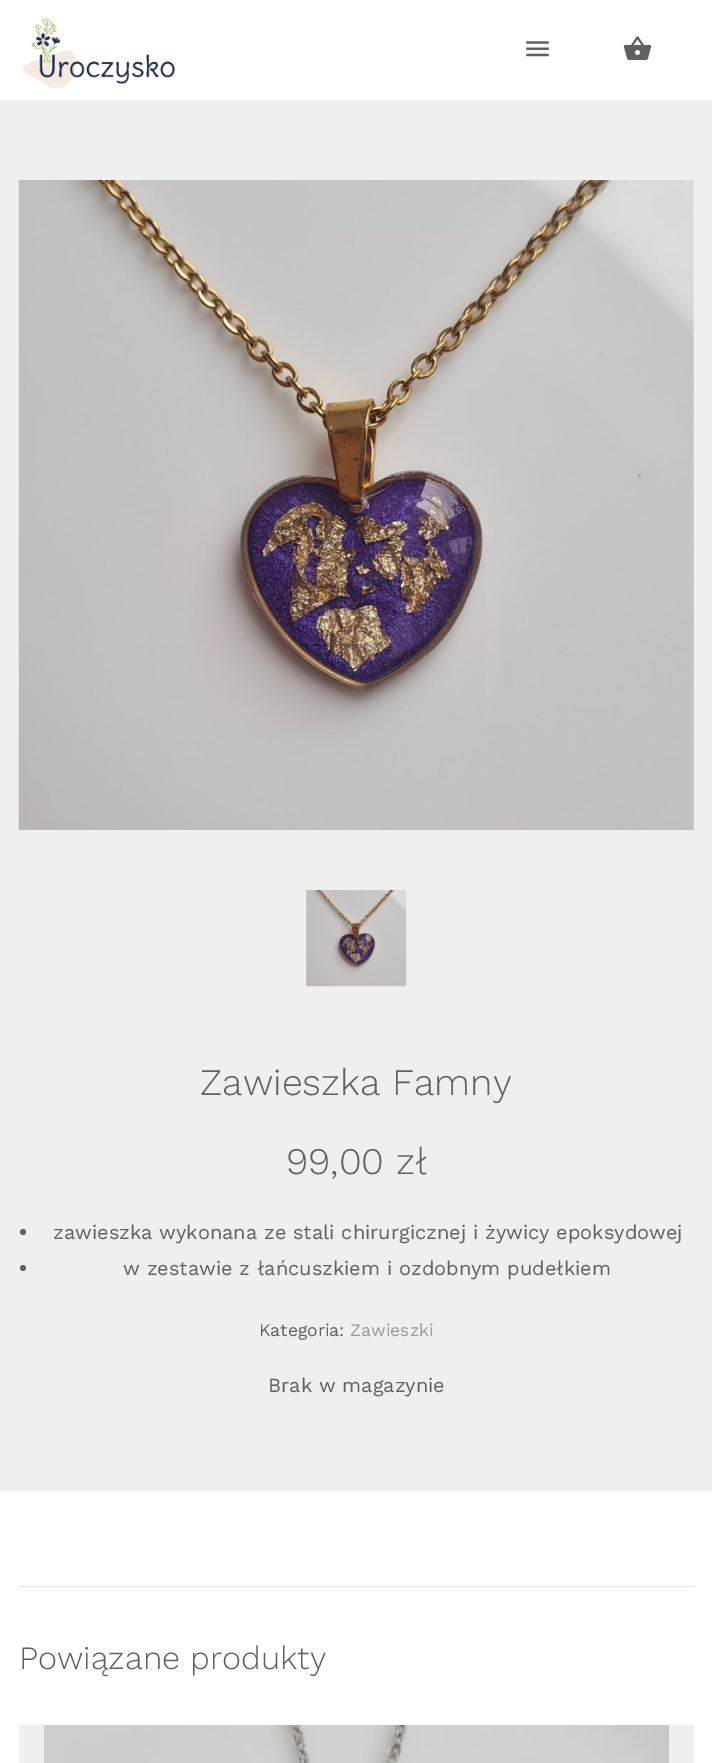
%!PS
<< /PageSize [712 1763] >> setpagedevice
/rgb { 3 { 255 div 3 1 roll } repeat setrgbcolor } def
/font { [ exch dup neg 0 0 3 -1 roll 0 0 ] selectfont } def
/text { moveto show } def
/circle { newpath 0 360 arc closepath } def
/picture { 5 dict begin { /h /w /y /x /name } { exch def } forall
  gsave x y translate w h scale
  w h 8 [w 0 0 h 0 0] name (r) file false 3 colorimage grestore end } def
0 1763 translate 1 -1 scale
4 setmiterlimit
255 255 255 rgb
0 0 712 1763 rectfill
(img_01.rgb) 22 18 153 71 picture
(img_02.rgb) 526 41 23 16 picture
(img_03.rgb) 623 36 29 24 picture
239 239 239 rgb
0 100 712 1391 rectfill
(img_04.rgb) 18 180 676 650 picture
(img_05.rgb) 306 890 101 97 picture
96 96 96 rgb
23 1232 3 circle fill
23 1268 3 circle fill
229 229 229 rgb
19 1586 675 1 rectfill
239 239 239 rgb
19 1725 675 38 rectfill
(img_06.rgb) 44 1725 625 38 picture
/WorkSans-Light 37.5 font
96 96 96 rgb
(Zawieszka Famny) 200 1095 text
(99,00 zł) 286 1174 text
/WorkSans-Regular 20 font
(zawieszka wykonana ze stali chirurgicznej i żywicy epoksydowej) 53 1239 text
(w zestawie z łańcuszkiem i ozdobnym pudełkiem) 123 1275 text
/WorkSans-Regular 17.5 font
(Kategoria:) 259 1336 text
153 153 153 rgb
(Zawieszki) 350 1336 text
/WorkSans-Regular 20 font
96 96 96 rgb
(Brak w magazynie) 268 1392 text
/WorkSans-Light 32.5 font
(Powiązane produkty) 19 1669 text
showpage
